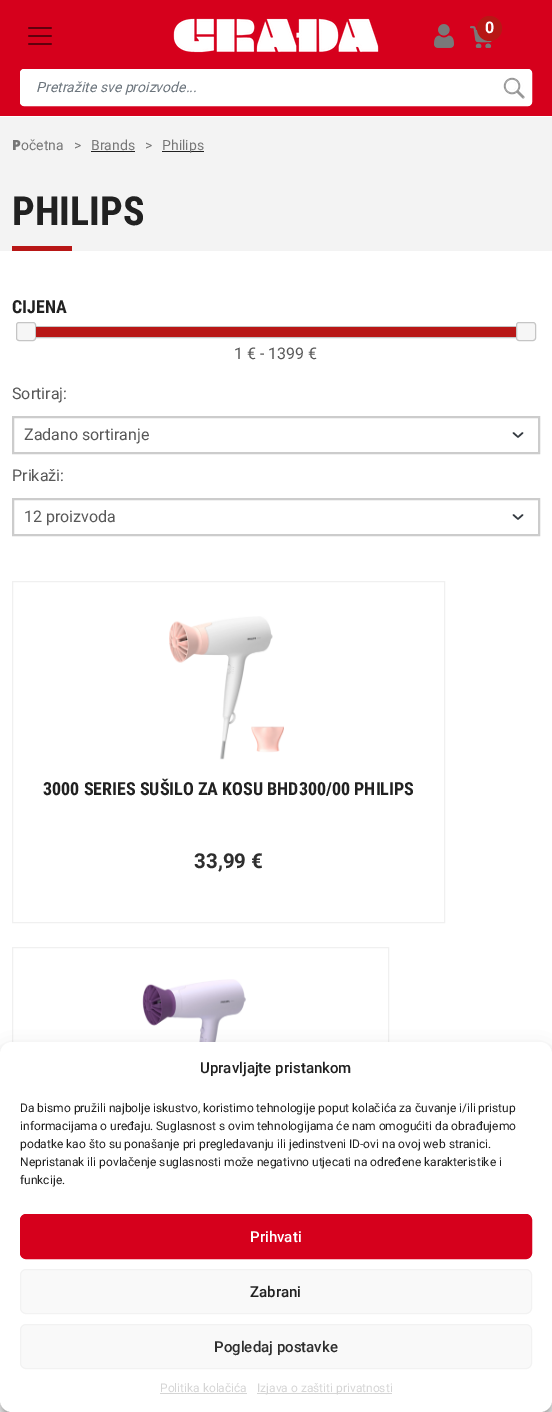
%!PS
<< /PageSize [552 1412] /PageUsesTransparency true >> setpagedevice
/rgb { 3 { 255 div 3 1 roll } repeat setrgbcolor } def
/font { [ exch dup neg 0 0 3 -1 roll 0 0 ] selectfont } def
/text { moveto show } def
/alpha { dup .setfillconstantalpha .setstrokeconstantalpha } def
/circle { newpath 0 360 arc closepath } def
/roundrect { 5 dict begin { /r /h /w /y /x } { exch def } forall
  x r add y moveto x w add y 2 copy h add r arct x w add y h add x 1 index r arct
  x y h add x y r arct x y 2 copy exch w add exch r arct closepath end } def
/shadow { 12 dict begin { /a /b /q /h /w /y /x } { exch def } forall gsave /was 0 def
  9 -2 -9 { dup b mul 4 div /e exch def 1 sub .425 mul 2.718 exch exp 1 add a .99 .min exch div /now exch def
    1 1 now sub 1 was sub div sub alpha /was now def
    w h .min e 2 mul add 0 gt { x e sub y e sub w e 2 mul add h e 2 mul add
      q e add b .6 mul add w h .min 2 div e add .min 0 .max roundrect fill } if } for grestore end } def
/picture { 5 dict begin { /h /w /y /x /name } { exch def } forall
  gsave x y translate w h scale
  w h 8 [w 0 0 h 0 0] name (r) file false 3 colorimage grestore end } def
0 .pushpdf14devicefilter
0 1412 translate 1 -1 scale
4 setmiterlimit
255 255 255 rgb
0 0 552 1412 rectfill
214 0 28 rgb
0 0 552 116 rectfill
(img_01.rgb) 28 27 24 18 picture
(img_02.rgb) 173 18 206 35 picture
(img_03.rgb) 434 24 20 24 picture
(img_04.rgb) 470 26 23 22 picture
183 23 21 rgb
489.5 28.5 12.5 circle fill
255 255 255 rgb
20.5 69.5 511 36 3.5 roundrect gsave fill grestore
stroke
(img_05.rgb) 503 77 22 22 picture
243 243 243 rgb
0 117 552 134 rectfill
33 33 33 rgb
91 151 44 1 rectfill
162 151 42 1 rectfill
184 23 22 rgb
12 246 60 5 rectfill
197 197 197 rgb
25.5 326.5 501 11 rectstroke
246 246 246 rgb
16.5 322.5 19 18 2.5 roundrect gsave fill grestore
197 197 197 rgb
stroke
184 23 22 rgb
36 327 480 10 rectfill
246 246 246 rgb
516.5 322.5 19 18 2.5 roundrect gsave fill grestore
197 197 197 rgb
stroke
52 58 64 rgb
1.5 setlinewidth
1 setlinecap
1 setlinejoin
513.5 433 moveto 4.5 4 rlineto 4.5 -4 rlineto stroke
204 204 204 rgb
2 setlinewidth
0 setlinecap
0 setlinejoin
13 417 526 36 rectstroke
52 58 64 rgb
1.5 setlinewidth
1 setlinecap
1 setlinejoin
513.5 515 moveto 4.5 4 rlineto 4.5 -4 rlineto stroke
204 204 204 rgb
2 setlinewidth
0 setlinecap
0 setlinejoin
13 499 526 36 rectstroke
240 240 240 rgb
1 setlinewidth
12.5 581.5 432 341 rectstroke
(img_06.rgb) 169 616 115 144 picture
12.5 947.5 376 341 rectstroke
(img_07.rgb) 142 979 116 63 picture
0 0 0 rgb
0 1048 552 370 12 3 0.23 shadow
0 1052 552 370 12 10 0.19 shadow
255 255 255 rgb
0 1042 552 370 12 roundrect fill
214 0 28 rgb
20.5 1214.5 511 44 5.5 roundrect gsave fill grestore
stroke
249 249 249 rgb
20.5 1269.5 511 44 5.5 roundrect gsave fill grestore
242 242 242 rgb
stroke
249 249 249 rgb
20.5 1324.5 511 44 5.5 roundrect gsave fill grestore
242 242 242 rgb
stroke
213 213 213 rgb
160 1393 87 1 rectfill
257 1393 135 1 rectfill
/Roboto-Bold 16 font
255 255 255 rgb
(0) 485 33 text
/Roboto-Italic 14 font
108 117 125 rgb
(Pretražite sve proizvode...) 36 92 text
/NotoSans-Black 14 font
118 118 118 rgb
(P) 12 150 text
/Roboto-Regular 14 font
(očetna) 21 150 text
(>) 74 150 text
(Brands) 91 150 text
(>) 145 150 text
(Philips) 162 150 text
/RobotoCondensed-Bold 40 font
33 33 33 rgb
(PHILIPS) 12 225 text
/RobotoCondensed-Bold 18 font
(CIJENA) 12 313 text
/Roboto-Regular 16 font
88 88 88 rgb
(1 € - 1399 €) 234 359 text
(Sortiraj:) 12 399 text
(Zadano sortiranje) 24 440 text
(Prikaži:) 12 481 text
(12 proizvoda) 24 522 text
/RobotoCondensed-Bold 18 font
33 33 33 rgb
(3000 SERIES SUŠILO ZA KOSU BHD300/00 PHILIPS) 43 795 text
/Roboto-Bold 20.5 font
46 46 46 rgb
(33,99 €) 194 868 text
/Roboto-Medium 15 font
33 33 33 rgb
(Upravljajte pristankom) 200 1073 text
/Roboto-Regular 12 font
(Da bismo pružili najbolje iskustvo, koristimo tehnologije poput kolačića za čuvanje i/ili pristup) 20 1112 text
(informacijama o uređaju. Suglasnost s ovim tehnologijama će nam omogućiti da obrađujemo) 20 1130 text
(podatke kao što su ponašanje pri pregledavanju ili jedinstveni ID-ovi na ovoj web stranici.) 20 1148 text
(Nepristanak ili povlačenje suglasnosti može negativno utjecati na određene karakteristike i) 20 1166 text
(funkcije.) 20 1184 text
/Roboto-Medium 15 font
255 255 255 rgb
(Prihvati) 250 1242 text
33 33 33 rgb
(Zabrani) 250 1297 text
46 46 46 rgb
(Pogledaj postavke) 214 1352 text
/Roboto-Regular 12 font
213 213 213 rgb
(Politika kolačića) 160 1392 text
(Izjava o zaštiti privatnosti) 257 1392 text
.poppdf14devicefilter showpage
